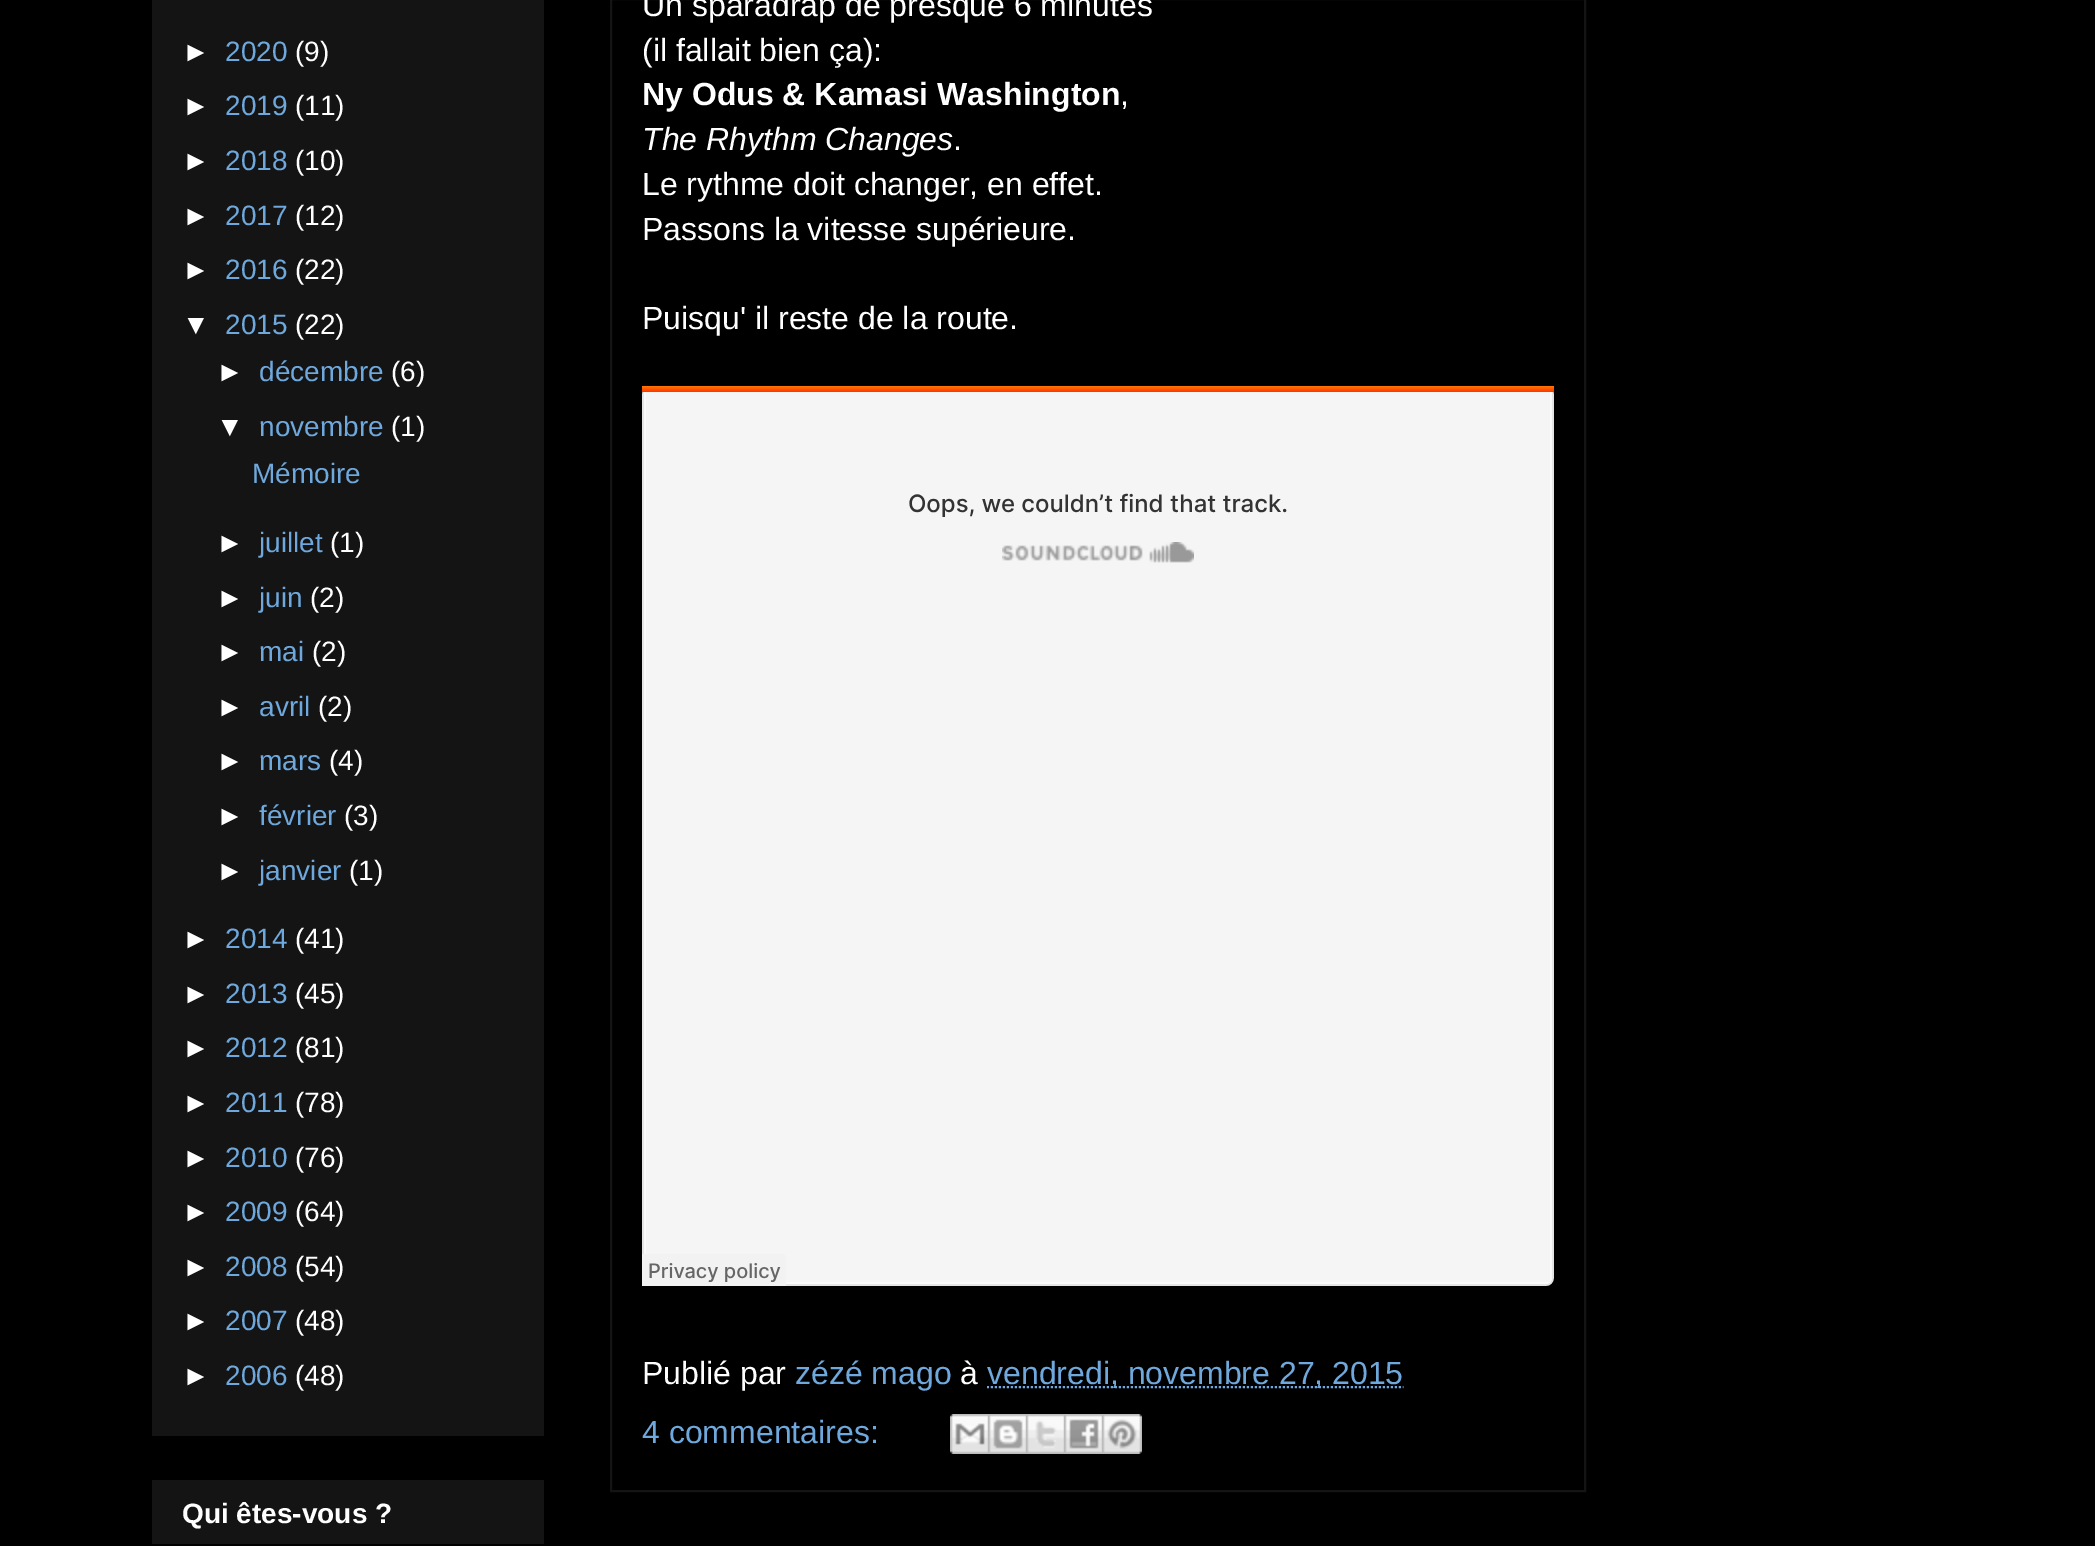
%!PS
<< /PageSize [2095 1546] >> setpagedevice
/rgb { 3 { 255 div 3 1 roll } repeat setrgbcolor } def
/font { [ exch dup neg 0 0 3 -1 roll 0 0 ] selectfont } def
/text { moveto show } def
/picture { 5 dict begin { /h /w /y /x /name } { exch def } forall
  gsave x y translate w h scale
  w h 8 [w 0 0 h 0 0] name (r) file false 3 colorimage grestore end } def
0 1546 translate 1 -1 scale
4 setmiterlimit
0 0 0 rgb
0 0 2095 1546 rectfill
20 20 20 rgb
152 0 392 1436 rectfill
152 1480 392 64 rectfill
2 setlinewidth
611 -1 974 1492 rectstroke
(img_01.rgb) 642 386 912 900 picture
111 168 220 rgb
[2 2] 0 setdash
987 1387 moveto 416.5 0 rlineto stroke
(img_02.rgb) 950 1414 38 40 picture
(img_03.rgb) 988 1414 38 40 picture
(img_04.rgb) 1026 1414 38 40 picture
(img_05.rgb) 1064 1414 38 40 picture
(img_06.rgb) 1102 1414 40 40 picture
/LiberationSans-Regular 28 font
255 255 255 rgb
(►) 182 61 text
111 168 220 rgb
(2020) 225 61 text
255 255 255 rgb
(\(9\)) 295 61 text
(►) 182 115 text
111 168 220 rgb
(2019) 225 115 text
255 255 255 rgb
(\(11\)) 295 115 text
(►) 182 170 text
111 168 220 rgb
(2018) 225 170 text
255 255 255 rgb
(\(10\)) 295 170 text
(►) 182 225 text
111 168 220 rgb
(2017) 225 225 text
255 255 255 rgb
(\(12\)) 295 225 text
(►) 182 279 text
111 168 220 rgb
(2016) 225 279 text
255 255 255 rgb
(\(22\)) 295 279 text
(▼) 182 334 text
111 168 220 rgb
(2015) 225 334 text
255 255 255 rgb
(\(22\)) 295 334 text
(►) 216 381 text
111 168 220 rgb
(décembre) 259 381 text
255 255 255 rgb
(\(6\)) 391 381 text
(▼) 216 436 text
111 168 220 rgb
(novembre) 259 436 text
255 255 255 rgb
(\(1\)) 391 436 text
111 168 220 rgb
(Mémoire) 252 483 text
255 255 255 rgb
(►) 216 552 text
111 168 220 rgb
(juillet) 259 552 text
255 255 255 rgb
(\(1\)) 330 552 text
(►) 216 607 text
111 168 220 rgb
(juin) 259 607 text
255 255 255 rgb
(\(2\)) 310 607 text
(►) 216 661 text
111 168 220 rgb
(mai) 259 661 text
255 255 255 rgb
(\(2\)) 312 661 text
(►) 216 716 text
111 168 220 rgb
(avril) 259 716 text
255 255 255 rgb
(\(2\)) 318 716 text
(►) 216 770 text
111 168 220 rgb
(mars) 259 770 text
255 255 255 rgb
(\(4\)) 329 770 text
(►) 216 825 text
111 168 220 rgb
(février) 259 825 text
255 255 255 rgb
(\(3\)) 344 825 text
(►) 216 880 text
111 168 220 rgb
(janvier) 259 880 text
255 255 255 rgb
(\(1\)) 349 880 text
(►) 182 948 text
111 168 220 rgb
(2014) 225 948 text
255 255 255 rgb
(\(41\)) 295 948 text
(►) 182 1003 text
111 168 220 rgb
(2013) 225 1003 text
255 255 255 rgb
(\(45\)) 295 1003 text
(►) 182 1057 text
111 168 220 rgb
(2012) 225 1057 text
255 255 255 rgb
(\(81\)) 295 1057 text
(►) 182 1112 text
111 168 220 rgb
(2011) 225 1112 text
255 255 255 rgb
(\(78\)) 295 1112 text
(►) 182 1167 text
111 168 220 rgb
(2010) 225 1167 text
255 255 255 rgb
(\(76\)) 295 1167 text
(►) 182 1221 text
111 168 220 rgb
(2009) 225 1221 text
255 255 255 rgb
(\(64\)) 295 1221 text
(►) 182 1276 text
111 168 220 rgb
(2008) 225 1276 text
255 255 255 rgb
(\(54\)) 295 1276 text
(►) 182 1330 text
111 168 220 rgb
(2007) 225 1330 text
255 255 255 rgb
(\(48\)) 295 1330 text
(►) 182 1385 text
111 168 220 rgb
(2006) 225 1385 text
255 255 255 rgb
(\(48\)) 295 1385 text
/LiberationSans-Bold 28 font
(Qui êtes-vous ?) 182 1523 text
/LiberationSans-Regular 32 font
(Un sparadrap de presque 6 minutes) 642 16 text
(\(il fallait bien ça\):) 642 61 text
/LiberationSans-Bold 32 font
(Ny Odus & Kamasi Washington) 642 105 text
/LiberationSans-Regular 32 font
(,) 1120 105 text
/LiberationSans-Italic 32 font
(The Rhythm Changes) 642 150 text
/LiberationSans-Regular 32 font
(.) 953 150 text
(Le rythme doit changer, en effet.) 642 195 text
(Passons la vitesse supérieure.) 642 240 text
(Puisqu' il reste de la route.) 642 329 text
(Publié par) 642 1384 text
111 168 220 rgb
(zézé mago) 795 1384 text
255 255 255 rgb
(à) 960 1384 text
111 168 220 rgb
(vendredi, novembre 27, 2015) 987 1384 text
(4 commentaires:) 642 1443 text
showpage
